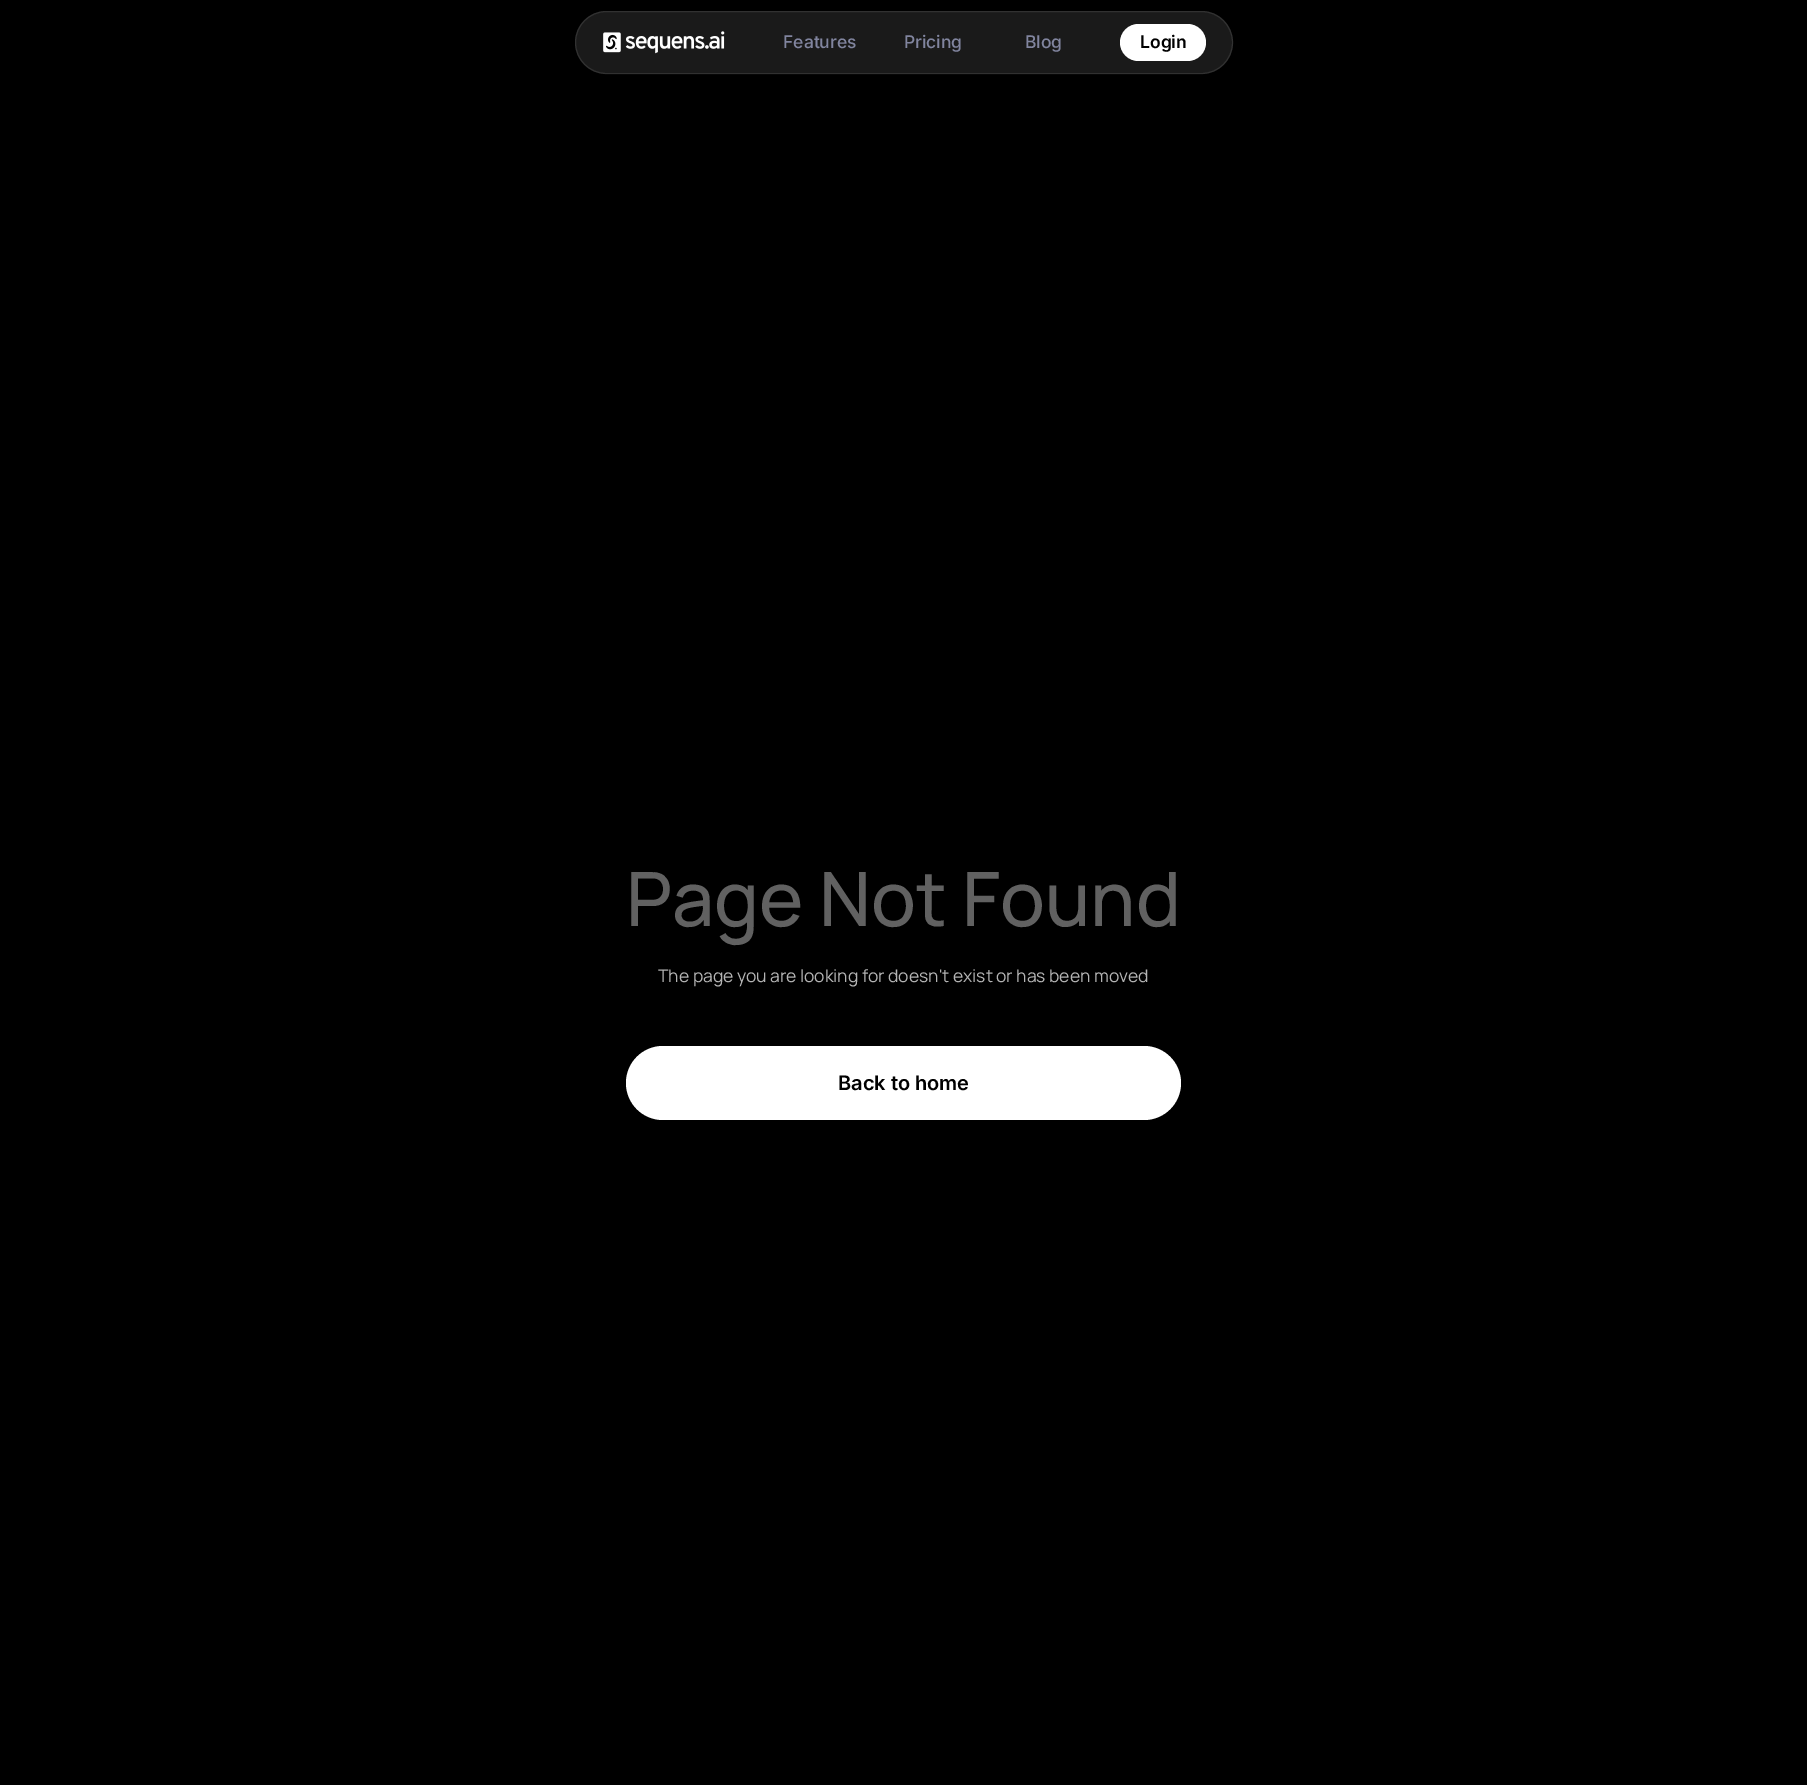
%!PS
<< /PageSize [1807 1785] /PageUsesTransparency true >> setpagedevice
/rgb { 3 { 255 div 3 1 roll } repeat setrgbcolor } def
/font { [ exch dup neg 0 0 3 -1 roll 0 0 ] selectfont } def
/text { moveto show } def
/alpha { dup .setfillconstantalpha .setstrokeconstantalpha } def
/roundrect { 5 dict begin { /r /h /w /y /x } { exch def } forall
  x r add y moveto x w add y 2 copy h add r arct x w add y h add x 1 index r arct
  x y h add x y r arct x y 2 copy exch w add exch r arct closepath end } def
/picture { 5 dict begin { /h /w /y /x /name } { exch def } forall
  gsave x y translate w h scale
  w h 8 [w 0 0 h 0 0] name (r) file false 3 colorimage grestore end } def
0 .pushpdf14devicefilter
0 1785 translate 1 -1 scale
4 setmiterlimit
0 0 0 rgb
0 0 1807 1785 rectfill
26 26 26 rgb
575 11 658 63 31.5 roundrect fill
0.1 alpha
255 255 255 rgb
575.5 11.5 657 62 31 roundrect stroke
1 alpha
(img_01.rgb) 603 31 122 23 picture
1120 24 86 37 18.5 roundrect fill
626 1046 555 74 37 roundrect fill
/Inter-Medium 17.5 font
129 133 159 rgb
(Features) 783 48 text
(Pricing) 904 48 text
(Blog) 1025 48 text
/Inter-SemiBold 17.5 font
0 0 0 rgb
(Login) 1140 48 text
/Manrope-Medium 75 font
97 97 97 rgb
(Page Not Found) 626 926 text
/Manrope-Regular 17.5 font
180 180 180 rgb
(The page you are looking for doesn't exist or has been moved) 658 982 text
/Inter-SemiBold 20 font
0 0 0 rgb
(Back to home) 838 1090 text
.poppdf14devicefilter showpage
